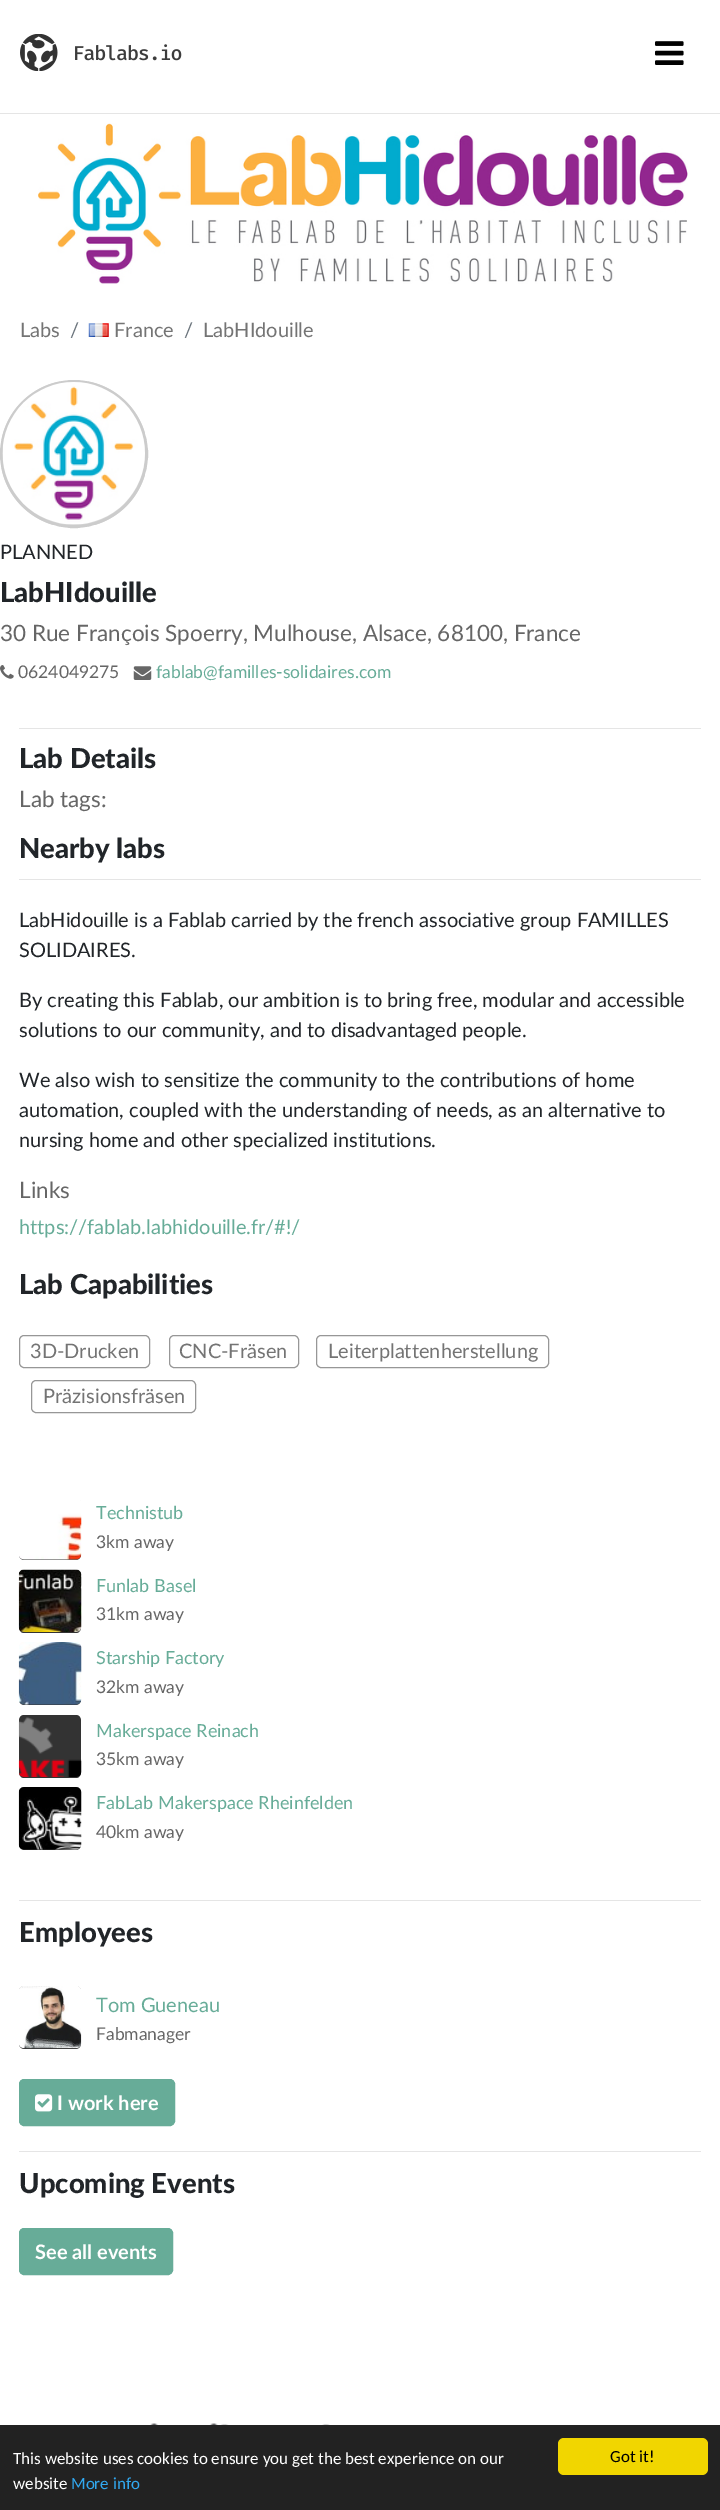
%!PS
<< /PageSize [720 2510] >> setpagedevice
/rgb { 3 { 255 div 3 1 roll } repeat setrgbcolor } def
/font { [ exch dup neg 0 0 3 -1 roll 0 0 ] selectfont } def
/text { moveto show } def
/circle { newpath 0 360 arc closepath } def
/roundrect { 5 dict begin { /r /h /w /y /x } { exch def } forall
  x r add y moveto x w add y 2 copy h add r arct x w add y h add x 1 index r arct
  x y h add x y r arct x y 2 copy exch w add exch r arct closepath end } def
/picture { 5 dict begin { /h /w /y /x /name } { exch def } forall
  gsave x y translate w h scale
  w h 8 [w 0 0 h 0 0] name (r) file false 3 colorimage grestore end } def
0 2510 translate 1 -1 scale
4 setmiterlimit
255 255 255 rgb
0 0 720 2510 rectfill
229 229 229 rgb
0 113 720 1 rectfill
(img_01.rgb) 20 34 162 37 picture
(img_02.rgb) 655 41 29 24 picture
(img_03.rgb) 38 123 650 161 picture
(img_04.rgb) 88 323 21 14 picture
216 216 216 rgb
74 454 72.5 circle gsave fill grestore
204 204 204 rgb
3 setlinewidth
stroke
(img_05.rgb) 2 382 143 143 picture
(img_06.rgb) 0 665 14 14 picture
(img_07.rgb) 133 666 19 14 picture
229 229 229 rgb
19 728 682 1 rectfill
19 879 682 1 rectfill
151 151 151 rgb
1 setlinewidth
19.5 1335.5 130 32 4.5 roundrect stroke
169.5 1335.5 129 32 4.5 roundrect stroke
316.5 1335.5 232 32 4.5 roundrect stroke
31.5 1380.5 164 32 4.5 roundrect stroke
51 51 51 rgb
19 1498 62 62 5 roundrect fill
(img_08.rgb) 19 1498 63 62 picture
19 1570 62 63 5 roundrect fill
(img_09.rgb) 18 1569 64 63 picture
19 1643 62 62 5 roundrect fill
(img_10.rgb) 18 1642 64 63 picture
19 1715 62 63 5 roundrect fill
(img_11.rgb) 18 1717 64 60 picture
19 1788 62 62 5 roundrect fill
(img_12.rgb) 18 1787 64 63 picture
229 229 229 rgb
19 1900 682 1 rectfill
51 51 51 rgb
19 1986 62 63 5 roundrect fill
(img_13.rgb) 19 1986 63 63 picture
103 172 152 rgb
19.5 2079.5 155 46 4.5 roundrect gsave fill grestore
stroke
(img_14.rgb) 35 2094 18 18 picture
229 229 229 rgb
19 2151 682 1 rectfill
103 172 152 rgb
19.5 2228.5 153 46 4.5 roundrect gsave fill grestore
stroke
(img_15.rgb) 150 2423 180 2 picture
34 34 34 rgb
0 2425 720 85 rectfill
241 214 0 rgb
558 2438 150 37 6 roundrect fill
/Lato-Regular 20 font
116 116 116 rgb
(Labs) 20 337 text
108 117 125 rgb
(/) 70 337 text
116 116 116 rgb
(France) 114 337 text
108 117 125 rgb
(/) 184 337 text
116 116 116 rgb
(LabHIdouille) 203 337 text
33 37 41 rgb
(PLANNED) 0 559 text
/Lato-Black 27.5 font
(LabHIdouille) 0 602 text
/Lato-Regular 22.5 font
102 102 102 rgb
(30 Rue François Spoerry, Mulhouse, Alsace, 68100, France) 0 641 text
/Lato-Regular 17.5 font
(0624049275) 18 678 text
103 172 152 rgb
(fablab@familles-solidaires.com) 156 678 text
/Lato-Black 27.5 font
33 37 41 rgb
(Lab Details) 19 768 text
/Lato-Regular 22.5 font
102 102 102 rgb
(Lab tags:) 19 807 text
/Lato-Black 27.5 font
33 37 41 rgb
(Nearby labs) 19 858 text
/Lato-Regular 20 font
(LabHidouille is a Fablab carried by the french associative group FAMILLES) 19 927 text
(SOLIDAIRES.) 19 957 text
(By creating this Fablab, our ambition is to bring free, modular and accessible) 19 1007 text
(solutions to our community, and to disadvantaged people.) 19 1037 text
(We also wish to sensitize the community to the contributions of home) 19 1087 text
(automation, coupled with the understanding of needs, as an alternative to) 19 1117 text
(nursing home and other specialized institutions.) 19 1147 text
/Lato-Regular 22.5 font
102 102 102 rgb
(Links) 19 1198 text
/Lato-Regular 20 font
103 172 152 rgb
(https://fablab.labhidouille.fr/#!/) 19 1234 text
/Lato-Black 27.5 font
33 37 41 rgb
(Lab Capabilities) 19 1294 text
/Lato-Regular 20 font
116 116 116 rgb
(3D-Drucken) 30 1358 text
(CNC-Fräsen) 179 1358 text
(Leiterplattenherstellung) 328 1358 text
(Präzisionsfräsen) 43 1403 text
/Lato-Regular 18 font
103 172 152 rgb
(Technistub) 96 1519 text
/Lato-Regular 17.5 font
102 102 102 rgb
(3km away) 96 1548 text
/Lato-Regular 18 font
103 172 152 rgb
(Funlab Basel) 96 1592 text
/Lato-Regular 17.5 font
102 102 102 rgb
(31km away) 96 1620 text
/Lato-Regular 18 font
103 172 152 rgb
(Starship Factory) 96 1664 text
/Lato-Regular 17.5 font
102 102 102 rgb
(32km away) 96 1693 text
/Lato-Regular 18 font
103 172 152 rgb
(Makerspace Reinach) 96 1737 text
/Lato-Regular 17.5 font
102 102 102 rgb
(35km away) 96 1765 text
/Lato-Regular 18 font
103 172 152 rgb
(FabLab Makerspace Rheinfelden) 96 1809 text
/Lato-Regular 17.5 font
102 102 102 rgb
(40km away) 96 1838 text
/Lato-Black 27.5 font
33 37 41 rgb
(Employees) 19 1942 text
/Lato-Regular 20 font
103 172 152 rgb
(Tom Gueneau) 96 2012 text
/Lato-Regular 17.5 font
102 102 102 rgb
(Fabmanager) 96 2040 text
/Lato-Bold 20 font
255 255 255 rgb
(I work here) 57 2110 text
/Lato-Black 27.5 font
33 37 41 rgb
(Upcoming Events) 19 2193 text
/Lato-Bold 20 font
255 255 255 rgb
(See all events) 35 2259 text
/Carlito-Regular 17 font
(This website uses cookies to ensure you get the best experience on our) 13 2464 text
(website) 13 2489 text
49 168 240 rgb
(More info) 71 2489 text
0 0 0 rgb
(Got it!) 610 2462 text
showpage
